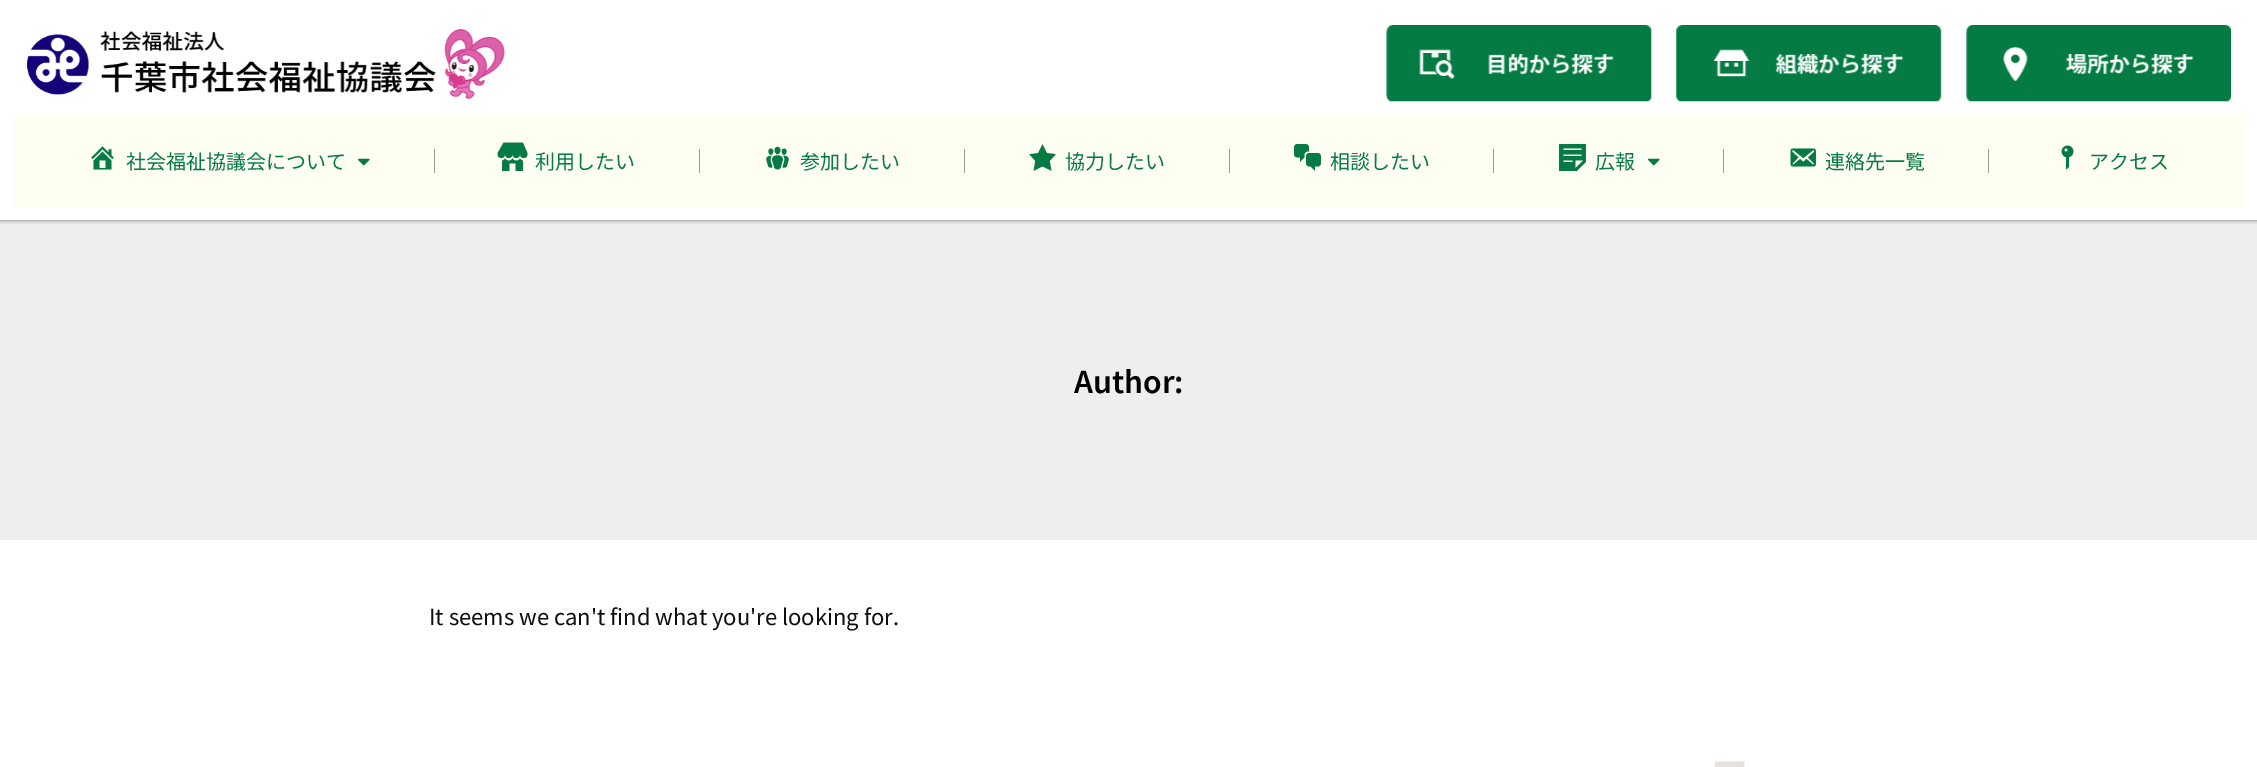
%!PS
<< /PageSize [2257 767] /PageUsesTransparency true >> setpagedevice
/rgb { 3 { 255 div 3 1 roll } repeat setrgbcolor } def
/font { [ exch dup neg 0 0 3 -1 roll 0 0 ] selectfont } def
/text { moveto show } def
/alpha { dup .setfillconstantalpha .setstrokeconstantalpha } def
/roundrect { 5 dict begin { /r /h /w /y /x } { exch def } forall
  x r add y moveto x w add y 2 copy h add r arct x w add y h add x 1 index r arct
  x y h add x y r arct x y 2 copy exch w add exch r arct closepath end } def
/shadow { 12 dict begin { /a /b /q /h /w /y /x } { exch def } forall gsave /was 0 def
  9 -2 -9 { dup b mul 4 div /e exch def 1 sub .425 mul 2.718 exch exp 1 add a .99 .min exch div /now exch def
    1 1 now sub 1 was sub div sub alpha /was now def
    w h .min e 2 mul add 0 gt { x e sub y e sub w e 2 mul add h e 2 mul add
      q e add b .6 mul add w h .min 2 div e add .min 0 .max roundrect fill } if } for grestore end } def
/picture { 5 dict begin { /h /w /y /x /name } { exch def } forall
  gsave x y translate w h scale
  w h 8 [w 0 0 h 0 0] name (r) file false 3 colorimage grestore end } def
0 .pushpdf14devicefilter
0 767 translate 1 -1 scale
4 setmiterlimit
255 255 255 rgb
0 0 2257 767 rectfill
238 238 238 rgb
0 220 2257 320 rectfill
gsave
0 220 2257 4 rectclip
0 0 0 rgb
0 0 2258 220 0 2.5 0.5 shadow
grestore
(img_01.rgb) 27 29 478 70 picture
(img_02.rgb) 1386 25 266 77 picture
(img_03.rgb) 1676 25 266 77 picture
(img_04.rgb) 1966 25 265 77 picture
255 254 243 rgb
13 114 2232 94 rectfill
(img_05.rgb) 91 146 23 24 picture
(img_06.rgb) 358 158 12 8 picture
153 153 153 rgb
434 149 1 24 rectfill
(img_07.rgb) 497 142 31 29 picture
699 149 1 24 rectfill
(img_08.rgb) 766 146 23 24 picture
964 149 1 24 rectfill
(img_09.rgb) 1029 144 27 27 picture
1229 149 1 24 rectfill
(img_10.rgb) 1294 144 27 27 picture
1493 149 1 24 rectfill
(img_11.rgb) 1559 144 27 27 picture
(img_06.rgb) 1648 158 12 8 picture
1723 149 1 24 rectfill
(img_12.rgb) 1790 148 26 19 picture
1988 149 1 24 rectfill
(img_13.rgb) 2061 145 13 25 picture
(img_14.rgb) 1714 760 31 7 picture
/NotoSansJP-Regular 20 font
4 123 67 rgb
(社会福祉協議会について) 126 169 text
(利用したい) 535 169 text
(参加したい) 800 169 text
(協力したい) 1065 169 text
(相談したい) 1330 169 text
(広報) 1595 169 text
(連絡先一覧) 1825 169 text
(アクセス) 2089 169 text
/NotoSansJP-SemiBold 30 font
0 0 0 rgb
(Author:) 1074 393 text
/NotoSansJP-Regular 22 font
14 14 14 rgb
(It seems we can't find what you're looking for.) 429 625 text
.poppdf14devicefilter showpage
